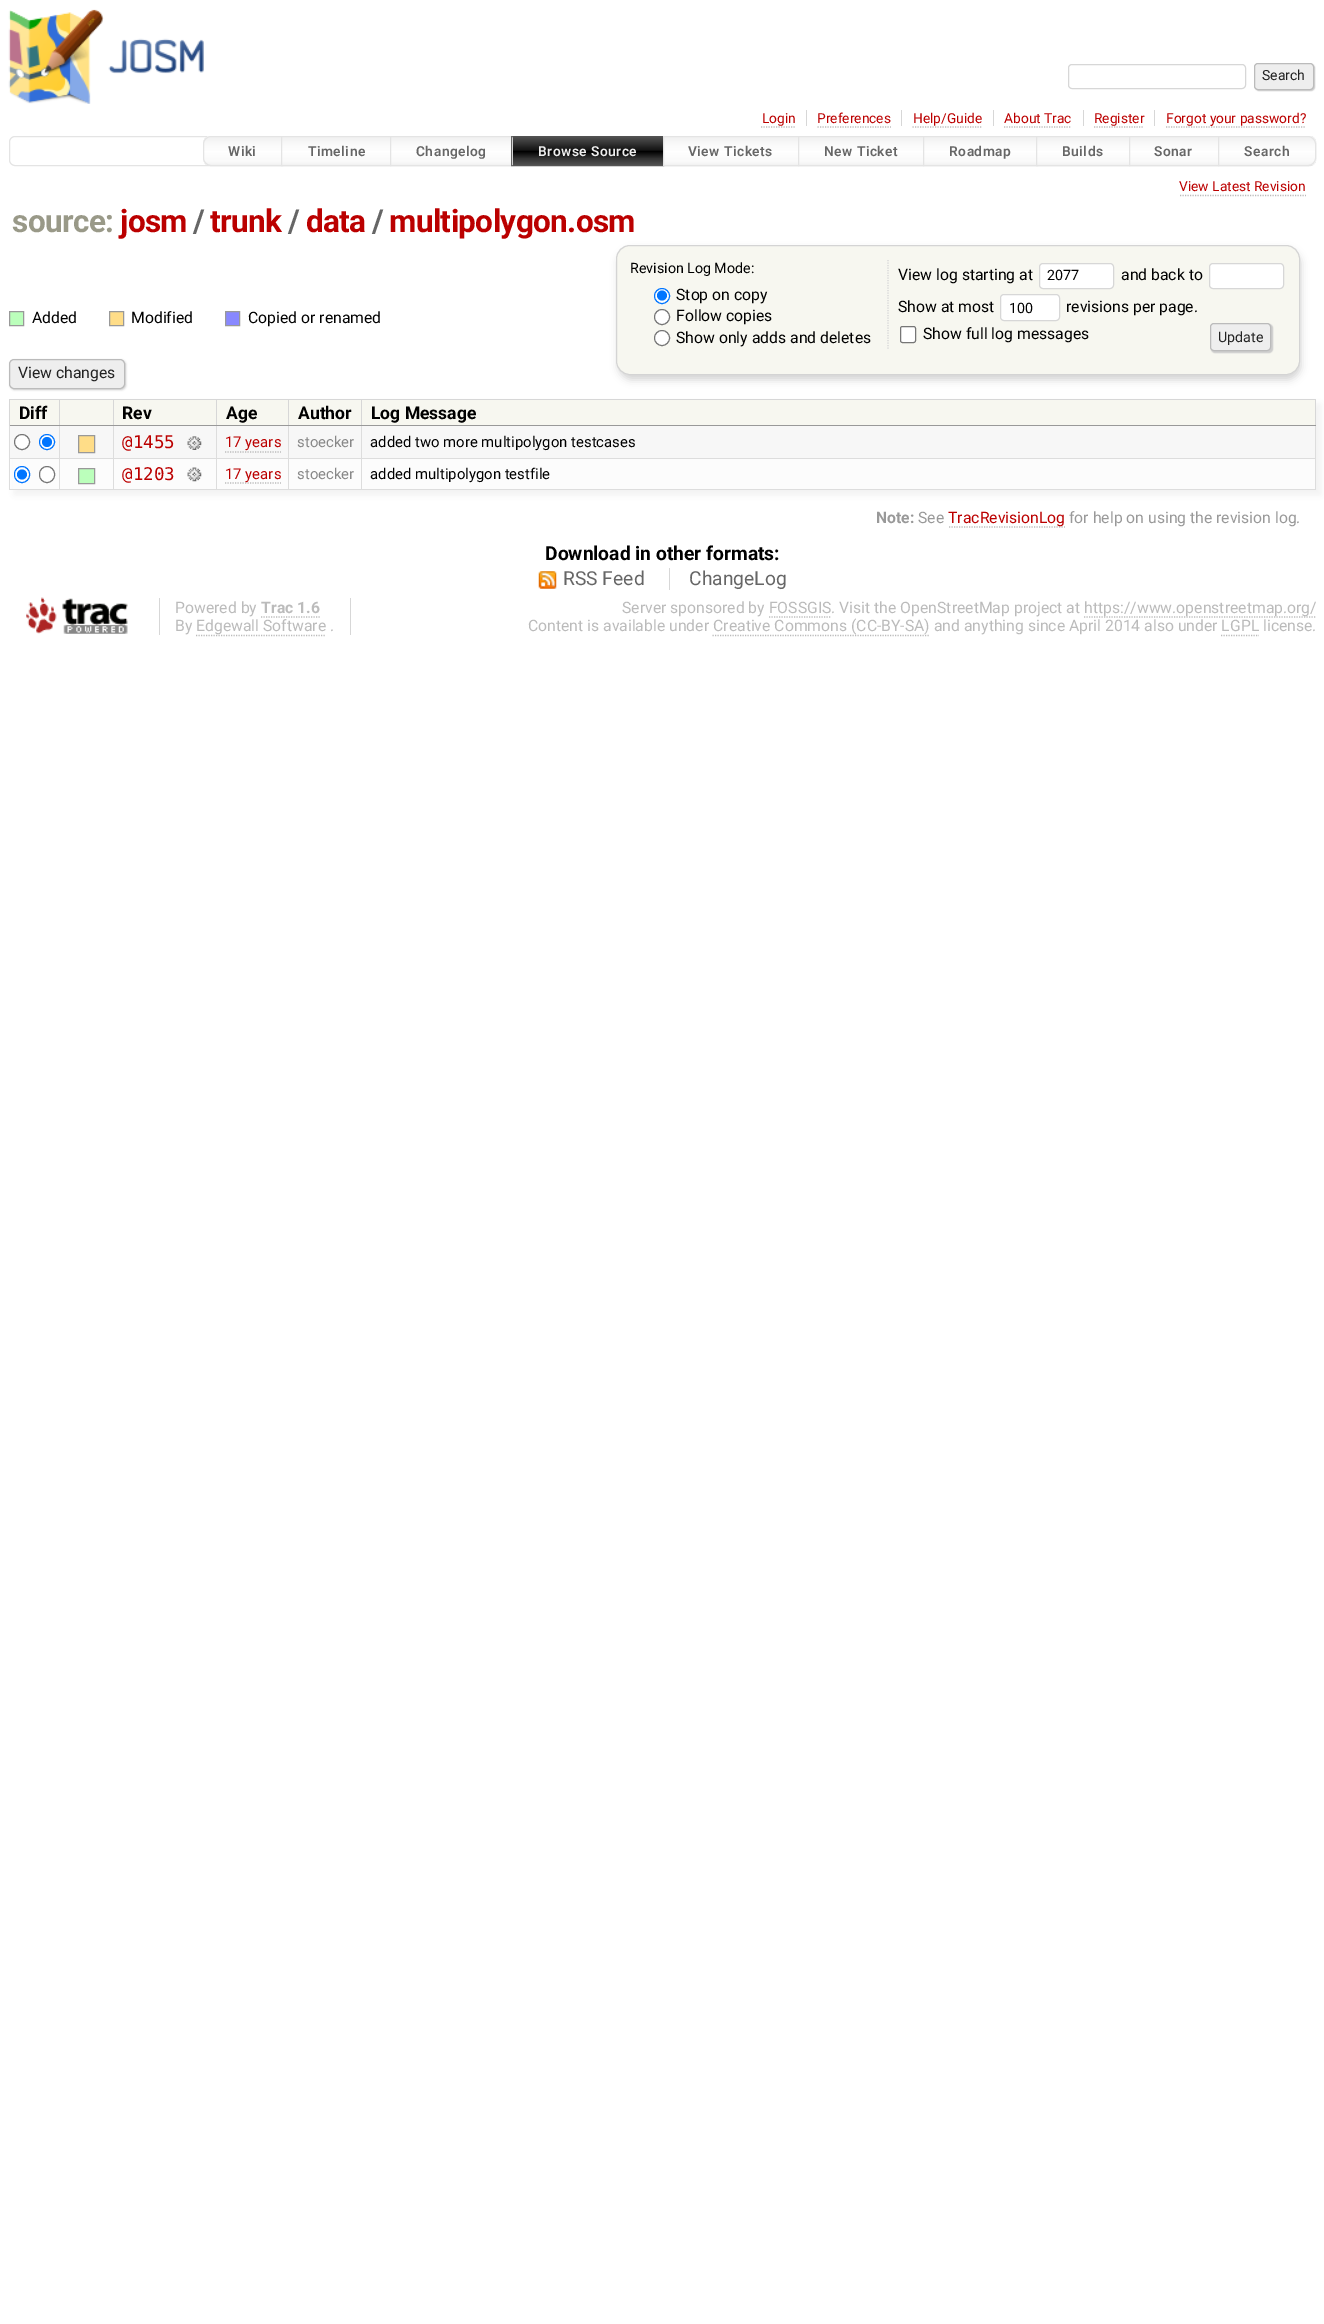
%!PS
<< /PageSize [1324 2324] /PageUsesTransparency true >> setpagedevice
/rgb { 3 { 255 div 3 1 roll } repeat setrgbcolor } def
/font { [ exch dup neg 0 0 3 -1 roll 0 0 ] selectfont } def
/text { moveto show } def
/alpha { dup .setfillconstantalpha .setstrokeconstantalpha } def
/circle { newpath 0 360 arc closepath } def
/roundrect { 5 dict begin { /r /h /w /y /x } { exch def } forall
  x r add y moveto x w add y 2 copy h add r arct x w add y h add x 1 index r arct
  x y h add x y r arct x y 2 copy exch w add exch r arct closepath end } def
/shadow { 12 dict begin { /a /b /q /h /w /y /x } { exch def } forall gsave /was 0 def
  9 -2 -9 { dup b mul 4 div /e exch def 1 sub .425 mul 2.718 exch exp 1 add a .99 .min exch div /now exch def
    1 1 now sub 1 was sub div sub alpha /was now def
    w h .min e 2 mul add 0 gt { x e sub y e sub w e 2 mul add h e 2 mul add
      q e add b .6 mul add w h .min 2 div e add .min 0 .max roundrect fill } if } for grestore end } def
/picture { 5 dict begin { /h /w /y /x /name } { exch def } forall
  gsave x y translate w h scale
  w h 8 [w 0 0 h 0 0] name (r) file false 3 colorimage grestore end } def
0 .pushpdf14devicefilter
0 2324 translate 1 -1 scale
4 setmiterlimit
255 255 255 rgb
0 0 1324 2324 rectfill
(img_01.rgb) 8 9 196 95 picture
215 215 215 rgb
1068.5 64.5 177 24 3.5 roundrect stroke
204 204 204 rgb
1255 64 60 27 4 0.5 1 shadow
238 238 238 rgb
1254.5 63.5 59 26 3.5 roundrect gsave fill grestore
187 187 187 rgb
stroke
215 215 215 rgb
806 110 1 16 rectfill
187 187 187 rgb
1.2 setlinewidth
[1.25 1.25] 0 setdash
761 127 moveto 34 0 rlineto stroke
215 215 215 rgb
901 110 1 16 rectfill
187 187 187 rgb
817.5 127 moveto 73.5 0 rlineto stroke
215 215 215 rgb
993 110 1 16 rectfill
187 187 187 rgb
912.5 127 moveto 70 0 rlineto stroke
215 215 215 rgb
1083 110 1 16 rectfill
187 187 187 rgb
1004 127 moveto 67 0 rlineto stroke
215 215 215 rgb
1154 110 1 16 rectfill
187 187 187 rgb
1094 127 moveto 50 0 rlineto stroke
1166 127 moveto 140 0 rlineto stroke
228 228 228 rgb
1 setlinewidth
[] 0 setdash
9.5 136.5 1306 29 5.5 roundrect stroke
gsave
211 136 moveto 72 0 rlineto 0 30 rlineto -72 0 rlineto -4.5 0 -8 -3.5 -8 -8 rcurveto 0 -14 rlineto 0 -4.5 3.5 -8 8 -8 rcurveto closepath clip newpath
gsave 203 136 moveto 80 0 rlineto 0 2 rlineto -80 0 rlineto closepath clip newpath
<< /ShadingType 2 /ColorSpace /DeviceRGB /Coords [243 110 243 138] /Extend [true true] /Function << /FunctionType 3 /Domain [0 1] /Functions [<< /FunctionType 2 /Domain [0 1] /C0 [0.949 0.949 0.949] /C1 [0.98 0.98 0.98] /N 1 >> << /FunctionType 2 /Domain [0 1] /C0 [0.98 0.98 0.98] /C1 [0.996 0.996 0.996] /N 1 >> << /FunctionType 2 /Domain [0 1] /C0 [0.996 0.996 0.996] /C1 [1 1 1] /N 1 >> << /FunctionType 2 /Domain [0 1] /C0 [1 1 1] /C1 [0.98 0.98 0.98] /N 1 >> << /FunctionType 2 /Domain [0 1] /C0 [0.98 0.98 0.98] /C1 [0.949 0.949 0.949] /N 1 >>] /Bounds [0.25 0.49 0.51 0.85] /Encode [0 1 0 1 0 1 0 1 0 1] >> >> shfill grestore
gsave 203 138 moveto 78 0 rlineto 0 27 rlineto -78 0 rlineto closepath clip newpath
<< /ShadingType 2 /ColorSpace /DeviceRGB /Coords [243 138 243 165] /Extend [true true] /Function << /FunctionType 3 /Domain [0 1] /Functions [<< /FunctionType 2 /Domain [0 1] /C0 [0.949 0.949 0.949] /C1 [0.98 0.98 0.98] /N 1 >> << /FunctionType 2 /Domain [0 1] /C0 [0.98 0.98 0.98] /C1 [0.996 0.996 0.996] /N 1 >> << /FunctionType 2 /Domain [0 1] /C0 [0.996 0.996 0.996] /C1 [1 1 1] /N 1 >> << /FunctionType 2 /Domain [0 1] /C0 [1 1 1] /C1 [0.98 0.98 0.98] /N 1 >> << /FunctionType 2 /Domain [0 1] /C0 [0.98 0.98 0.98] /C1 [0.949 0.949 0.949] /N 1 >>] /Bounds [0.25 0.49 0.51 0.85] /Encode [0 1 0 1 0 1 0 1 0 1] >> >> shfill grestore
grestore
211 136.5 moveto 71.5 0 rlineto 0 29 rlineto -71.5 0 rlineto -4 0 -7.5 -3.5 -7.5 -7.5 rcurveto 0 -14 rlineto 0 -4 3.5 -7.5 7.5 -7.5 rcurveto closepath stroke
gsave 281 137 moveto 110 0 rlineto 0 1 rlineto -110 0 rlineto closepath clip newpath
<< /ShadingType 2 /ColorSpace /DeviceRGB /Coords [336 110 336 138] /Extend [true true] /Function << /FunctionType 3 /Domain [0 1] /Functions [<< /FunctionType 2 /Domain [0 1] /C0 [0.949 0.949 0.949] /C1 [0.98 0.98 0.98] /N 1 >> << /FunctionType 2 /Domain [0 1] /C0 [0.98 0.98 0.98] /C1 [0.996 0.996 0.996] /N 1 >> << /FunctionType 2 /Domain [0 1] /C0 [0.996 0.996 0.996] /C1 [1 1 1] /N 1 >> << /FunctionType 2 /Domain [0 1] /C0 [1 1 1] /C1 [0.98 0.98 0.98] /N 1 >> << /FunctionType 2 /Domain [0 1] /C0 [0.98 0.98 0.98] /C1 [0.949 0.949 0.949] /N 1 >>] /Bounds [0.25 0.49 0.51 0.85] /Encode [0 1 0 1 0 1 0 1 0 1] >> >> shfill grestore
gsave 282 138 moveto 108 0 rlineto 0 27 rlineto -108 0 rlineto closepath clip newpath
<< /ShadingType 2 /ColorSpace /DeviceRGB /Coords [336 138 336 165] /Extend [true true] /Function << /FunctionType 3 /Domain [0 1] /Functions [<< /FunctionType 2 /Domain [0 1] /C0 [0.949 0.949 0.949] /C1 [0.98 0.98 0.98] /N 1 >> << /FunctionType 2 /Domain [0 1] /C0 [0.98 0.98 0.98] /C1 [0.996 0.996 0.996] /N 1 >> << /FunctionType 2 /Domain [0 1] /C0 [0.996 0.996 0.996] /C1 [1 1 1] /N 1 >> << /FunctionType 2 /Domain [0 1] /C0 [1 1 1] /C1 [0.98 0.98 0.98] /N 1 >> << /FunctionType 2 /Domain [0 1] /C0 [0.98 0.98 0.98] /C1 [0.949 0.949 0.949] /N 1 >>] /Bounds [0.25 0.49 0.51 0.85] /Encode [0 1 0 1 0 1 0 1 0 1] >> >> shfill grestore
281.5 136.5 109 29 rectstroke
gsave 390 137 moveto 124 0 rlineto 0 1 rlineto -124 0 rlineto closepath clip newpath
<< /ShadingType 2 /ColorSpace /DeviceRGB /Coords [452 110 452 138] /Extend [true true] /Function << /FunctionType 3 /Domain [0 1] /Functions [<< /FunctionType 2 /Domain [0 1] /C0 [0.949 0.949 0.949] /C1 [0.98 0.98 0.98] /N 1 >> << /FunctionType 2 /Domain [0 1] /C0 [0.98 0.98 0.98] /C1 [0.996 0.996 0.996] /N 1 >> << /FunctionType 2 /Domain [0 1] /C0 [0.996 0.996 0.996] /C1 [1 1 1] /N 1 >> << /FunctionType 2 /Domain [0 1] /C0 [1 1 1] /C1 [0.98 0.98 0.98] /N 1 >> << /FunctionType 2 /Domain [0 1] /C0 [0.98 0.98 0.98] /C1 [0.949 0.949 0.949] /N 1 >>] /Bounds [0.25 0.49 0.51 0.85] /Encode [0 1 0 1 0 1 0 1 0 1] >> >> shfill grestore
gsave 391 138 moveto 120 0 rlineto 0 27 rlineto -120 0 rlineto closepath clip newpath
<< /ShadingType 2 /ColorSpace /DeviceRGB /Coords [452 138 452 165] /Extend [true true] /Function << /FunctionType 3 /Domain [0 1] /Functions [<< /FunctionType 2 /Domain [0 1] /C0 [0.949 0.949 0.949] /C1 [0.98 0.98 0.98] /N 1 >> << /FunctionType 2 /Domain [0 1] /C0 [0.98 0.98 0.98] /C1 [0.996 0.996 0.996] /N 1 >> << /FunctionType 2 /Domain [0 1] /C0 [0.996 0.996 0.996] /C1 [1 1 1] /N 1 >> << /FunctionType 2 /Domain [0 1] /C0 [1 1 1] /C1 [0.98 0.98 0.98] /N 1 >> << /FunctionType 2 /Domain [0 1] /C0 [0.98 0.98 0.98] /C1 [0.949 0.949 0.949] /N 1 >>] /Bounds [0.25 0.49 0.51 0.85] /Encode [0 1 0 1 0 1 0 1 0 1] >> >> shfill grestore
390.5 136.5 123 29 rectstroke
gsave 512 138 moveto 1 0 rlineto 0 27 rlineto -1 0 rlineto closepath clip newpath
<< /ShadingType 2 /ColorSpace /DeviceRGB /Coords [588 138 588 165] /Extend [true true] /Function << /FunctionType 3 /Domain [0 1] /Functions [<< /FunctionType 2 /Domain [0 1] /C0 [0.949 0.949 0.949] /C1 [0.98 0.98 0.98] /N 1 >> << /FunctionType 2 /Domain [0 1] /C0 [0.98 0.98 0.98] /C1 [0.996 0.996 0.996] /N 1 >> << /FunctionType 2 /Domain [0 1] /C0 [0.996 0.996 0.996] /C1 [1 1 1] /N 1 >> << /FunctionType 2 /Domain [0 1] /C0 [1 1 1] /C1 [0.98 0.98 0.98] /N 1 >> << /FunctionType 2 /Domain [0 1] /C0 [0.98 0.98 0.98] /C1 [0.949 0.949 0.949] /N 1 >>] /Bounds [0.25 0.49 0.51 0.85] /Encode [0 1 0 1 0 1 0 1 0 1] >> >> shfill grestore
102 102 102 rgb
511.5 136.5 152 29 rectstroke
gsave 513 136 moveto 150 0 rlineto 0 30 rlineto -150 0 rlineto closepath clip newpath
<< /ShadingType 2 /ColorSpace /DeviceRGB /Coords [588 136 588 166] /Extend [true true] /Function << /FunctionType 3 /Domain [0 1] /Functions [<< /FunctionType 2 /Domain [0 1] /C0 [0.333 0.333 0.333] /C1 [0.2 0.2 0.2] /N 1 >> << /FunctionType 2 /Domain [0 1] /C0 [0.2 0.2 0.2] /C1 [0.067 0.067 0.067] /N 1 >> << /FunctionType 2 /Domain [0 1] /C0 [0.067 0.067 0.067] /C1 [0 0 0] /N 1 >> << /FunctionType 2 /Domain [0 1] /C0 [0 0 0] /C1 [0.2 0.2 0.2] /N 1 >> << /FunctionType 2 /Domain [0 1] /C0 [0.2 0.2 0.2] /C1 [0.333 0.333 0.333] /N 1 >>] /Bounds [0.25 0.49 0.51 0.75] /Encode [0 1 0 1 0 1 0 1 0 1] >> >> shfill grestore
gsave 663 137 moveto 136 0 rlineto 0 1 rlineto -136 0 rlineto closepath clip newpath
<< /ShadingType 2 /ColorSpace /DeviceRGB /Coords [731 110 731 138] /Extend [true true] /Function << /FunctionType 3 /Domain [0 1] /Functions [<< /FunctionType 2 /Domain [0 1] /C0 [0.949 0.949 0.949] /C1 [0.98 0.98 0.98] /N 1 >> << /FunctionType 2 /Domain [0 1] /C0 [0.98 0.98 0.98] /C1 [0.996 0.996 0.996] /N 1 >> << /FunctionType 2 /Domain [0 1] /C0 [0.996 0.996 0.996] /C1 [1 1 1] /N 1 >> << /FunctionType 2 /Domain [0 1] /C0 [1 1 1] /C1 [0.98 0.98 0.98] /N 1 >> << /FunctionType 2 /Domain [0 1] /C0 [0.98 0.98 0.98] /C1 [0.949 0.949 0.949] /N 1 >>] /Bounds [0.25 0.49 0.51 0.85] /Encode [0 1 0 1 0 1 0 1 0 1] >> >> shfill grestore
gsave 664 138 moveto 134 0 rlineto 0 27 rlineto -134 0 rlineto closepath clip newpath
<< /ShadingType 2 /ColorSpace /DeviceRGB /Coords [731 138 731 165] /Extend [true true] /Function << /FunctionType 3 /Domain [0 1] /Functions [<< /FunctionType 2 /Domain [0 1] /C0 [0.949 0.949 0.949] /C1 [0.98 0.98 0.98] /N 1 >> << /FunctionType 2 /Domain [0 1] /C0 [0.98 0.98 0.98] /C1 [0.996 0.996 0.996] /N 1 >> << /FunctionType 2 /Domain [0 1] /C0 [0.996 0.996 0.996] /C1 [1 1 1] /N 1 >> << /FunctionType 2 /Domain [0 1] /C0 [1 1 1] /C1 [0.98 0.98 0.98] /N 1 >> << /FunctionType 2 /Domain [0 1] /C0 [0.98 0.98 0.98] /C1 [0.949 0.949 0.949] /N 1 >>] /Bounds [0.25 0.49 0.51 0.85] /Encode [0 1 0 1 0 1 0 1 0 1] >> >> shfill grestore
228 228 228 rgb
663.5 136.5 135 29 rectstroke
gsave 798 137 moveto 126 0 rlineto 0 1 rlineto -126 0 rlineto closepath clip newpath
<< /ShadingType 2 /ColorSpace /DeviceRGB /Coords [861 110 861 138] /Extend [true true] /Function << /FunctionType 3 /Domain [0 1] /Functions [<< /FunctionType 2 /Domain [0 1] /C0 [0.949 0.949 0.949] /C1 [0.98 0.98 0.98] /N 1 >> << /FunctionType 2 /Domain [0 1] /C0 [0.98 0.98 0.98] /C1 [0.996 0.996 0.996] /N 1 >> << /FunctionType 2 /Domain [0 1] /C0 [0.996 0.996 0.996] /C1 [1 1 1] /N 1 >> << /FunctionType 2 /Domain [0 1] /C0 [1 1 1] /C1 [0.98 0.98 0.98] /N 1 >> << /FunctionType 2 /Domain [0 1] /C0 [0.98 0.98 0.98] /C1 [0.949 0.949 0.949] /N 1 >>] /Bounds [0.25 0.49 0.51 0.85] /Encode [0 1 0 1 0 1 0 1 0 1] >> >> shfill grestore
gsave 799 138 moveto 124 0 rlineto 0 27 rlineto -124 0 rlineto closepath clip newpath
<< /ShadingType 2 /ColorSpace /DeviceRGB /Coords [861 138 861 165] /Extend [true true] /Function << /FunctionType 3 /Domain [0 1] /Functions [<< /FunctionType 2 /Domain [0 1] /C0 [0.949 0.949 0.949] /C1 [0.98 0.98 0.98] /N 1 >> << /FunctionType 2 /Domain [0 1] /C0 [0.98 0.98 0.98] /C1 [0.996 0.996 0.996] /N 1 >> << /FunctionType 2 /Domain [0 1] /C0 [0.996 0.996 0.996] /C1 [1 1 1] /N 1 >> << /FunctionType 2 /Domain [0 1] /C0 [1 1 1] /C1 [0.98 0.98 0.98] /N 1 >> << /FunctionType 2 /Domain [0 1] /C0 [0.98 0.98 0.98] /C1 [0.949 0.949 0.949] /N 1 >>] /Bounds [0.25 0.49 0.51 0.85] /Encode [0 1 0 1 0 1 0 1 0 1] >> >> shfill grestore
798.5 136.5 125 29 rectstroke
gsave 923 137 moveto 115 0 rlineto 0 1 rlineto -115 0 rlineto closepath clip newpath
<< /ShadingType 2 /ColorSpace /DeviceRGB /Coords [980 110 980 138] /Extend [true true] /Function << /FunctionType 3 /Domain [0 1] /Functions [<< /FunctionType 2 /Domain [0 1] /C0 [0.949 0.949 0.949] /C1 [0.98 0.98 0.98] /N 1 >> << /FunctionType 2 /Domain [0 1] /C0 [0.98 0.98 0.98] /C1 [0.996 0.996 0.996] /N 1 >> << /FunctionType 2 /Domain [0 1] /C0 [0.996 0.996 0.996] /C1 [1 1 1] /N 1 >> << /FunctionType 2 /Domain [0 1] /C0 [1 1 1] /C1 [0.98 0.98 0.98] /N 1 >> << /FunctionType 2 /Domain [0 1] /C0 [0.98 0.98 0.98] /C1 [0.949 0.949 0.949] /N 1 >>] /Bounds [0.25 0.49 0.51 0.85] /Encode [0 1 0 1 0 1 0 1 0 1] >> >> shfill grestore
gsave 924 138 moveto 112 0 rlineto 0 27 rlineto -112 0 rlineto closepath clip newpath
<< /ShadingType 2 /ColorSpace /DeviceRGB /Coords [980 138 980 165] /Extend [true true] /Function << /FunctionType 3 /Domain [0 1] /Functions [<< /FunctionType 2 /Domain [0 1] /C0 [0.949 0.949 0.949] /C1 [0.98 0.98 0.98] /N 1 >> << /FunctionType 2 /Domain [0 1] /C0 [0.98 0.98 0.98] /C1 [0.996 0.996 0.996] /N 1 >> << /FunctionType 2 /Domain [0 1] /C0 [0.996 0.996 0.996] /C1 [1 1 1] /N 1 >> << /FunctionType 2 /Domain [0 1] /C0 [1 1 1] /C1 [0.98 0.98 0.98] /N 1 >> << /FunctionType 2 /Domain [0 1] /C0 [0.98 0.98 0.98] /C1 [0.949 0.949 0.949] /N 1 >>] /Bounds [0.25 0.49 0.51 0.85] /Encode [0 1 0 1 0 1 0 1 0 1] >> >> shfill grestore
923.5 136.5 114 29 rectstroke
gsave 1036 137 moveto 94 0 rlineto 0 1 rlineto -94 0 rlineto closepath clip newpath
<< /ShadingType 2 /ColorSpace /DeviceRGB /Coords [1083 110 1083 138] /Extend [true true] /Function << /FunctionType 3 /Domain [0 1] /Functions [<< /FunctionType 2 /Domain [0 1] /C0 [0.949 0.949 0.949] /C1 [0.98 0.98 0.98] /N 1 >> << /FunctionType 2 /Domain [0 1] /C0 [0.98 0.98 0.98] /C1 [0.996 0.996 0.996] /N 1 >> << /FunctionType 2 /Domain [0 1] /C0 [0.996 0.996 0.996] /C1 [1 1 1] /N 1 >> << /FunctionType 2 /Domain [0 1] /C0 [1 1 1] /C1 [0.98 0.98 0.98] /N 1 >> << /FunctionType 2 /Domain [0 1] /C0 [0.98 0.98 0.98] /C1 [0.949 0.949 0.949] /N 1 >>] /Bounds [0.25 0.49 0.51 0.85] /Encode [0 1 0 1 0 1 0 1 0 1] >> >> shfill grestore
gsave 1037 138 moveto 92 0 rlineto 0 27 rlineto -92 0 rlineto closepath clip newpath
<< /ShadingType 2 /ColorSpace /DeviceRGB /Coords [1083 138 1083 165] /Extend [true true] /Function << /FunctionType 3 /Domain [0 1] /Functions [<< /FunctionType 2 /Domain [0 1] /C0 [0.949 0.949 0.949] /C1 [0.98 0.98 0.98] /N 1 >> << /FunctionType 2 /Domain [0 1] /C0 [0.98 0.98 0.98] /C1 [0.996 0.996 0.996] /N 1 >> << /FunctionType 2 /Domain [0 1] /C0 [0.996 0.996 0.996] /C1 [1 1 1] /N 1 >> << /FunctionType 2 /Domain [0 1] /C0 [1 1 1] /C1 [0.98 0.98 0.98] /N 1 >> << /FunctionType 2 /Domain [0 1] /C0 [0.98 0.98 0.98] /C1 [0.949 0.949 0.949] /N 1 >>] /Bounds [0.25 0.49 0.51 0.85] /Encode [0 1 0 1 0 1 0 1 0 1] >> >> shfill grestore
1036.5 136.5 93 29 rectstroke
gsave 1129 137 moveto 90 0 rlineto 0 1 rlineto -90 0 rlineto closepath clip newpath
<< /ShadingType 2 /ColorSpace /DeviceRGB /Coords [1174 110 1174 138] /Extend [true true] /Function << /FunctionType 3 /Domain [0 1] /Functions [<< /FunctionType 2 /Domain [0 1] /C0 [0.949 0.949 0.949] /C1 [0.98 0.98 0.98] /N 1 >> << /FunctionType 2 /Domain [0 1] /C0 [0.98 0.98 0.98] /C1 [0.996 0.996 0.996] /N 1 >> << /FunctionType 2 /Domain [0 1] /C0 [0.996 0.996 0.996] /C1 [1 1 1] /N 1 >> << /FunctionType 2 /Domain [0 1] /C0 [1 1 1] /C1 [0.98 0.98 0.98] /N 1 >> << /FunctionType 2 /Domain [0 1] /C0 [0.98 0.98 0.98] /C1 [0.949 0.949 0.949] /N 1 >>] /Bounds [0.25 0.49 0.51 0.85] /Encode [0 1 0 1 0 1 0 1 0 1] >> >> shfill grestore
gsave 1130 138 moveto 88 0 rlineto 0 27 rlineto -88 0 rlineto closepath clip newpath
<< /ShadingType 2 /ColorSpace /DeviceRGB /Coords [1174 138 1174 165] /Extend [true true] /Function << /FunctionType 3 /Domain [0 1] /Functions [<< /FunctionType 2 /Domain [0 1] /C0 [0.949 0.949 0.949] /C1 [0.98 0.98 0.98] /N 1 >> << /FunctionType 2 /Domain [0 1] /C0 [0.98 0.98 0.98] /C1 [0.996 0.996 0.996] /N 1 >> << /FunctionType 2 /Domain [0 1] /C0 [0.996 0.996 0.996] /C1 [1 1 1] /N 1 >> << /FunctionType 2 /Domain [0 1] /C0 [1 1 1] /C1 [0.98 0.98 0.98] /N 1 >> << /FunctionType 2 /Domain [0 1] /C0 [0.98 0.98 0.98] /C1 [0.949 0.949 0.949] /N 1 >>] /Bounds [0.25 0.49 0.51 0.85] /Encode [0 1 0 1 0 1 0 1 0 1] >> >> shfill grestore
1129.5 136.5 89 29 rectstroke
gsave
1218 136 moveto 90 0 rlineto 4.5 0 8 3.5 8 8 rcurveto 0 14 rlineto 0 4.5 -3.5 8 -8 8 rcurveto -90 0 rlineto closepath clip newpath
gsave 1218 136 moveto 98 0 rlineto 0 2 rlineto -98 0 rlineto closepath clip newpath
<< /ShadingType 2 /ColorSpace /DeviceRGB /Coords [1267 110 1267 138] /Extend [true true] /Function << /FunctionType 3 /Domain [0 1] /Functions [<< /FunctionType 2 /Domain [0 1] /C0 [0.949 0.949 0.949] /C1 [0.98 0.98 0.98] /N 1 >> << /FunctionType 2 /Domain [0 1] /C0 [0.98 0.98 0.98] /C1 [0.996 0.996 0.996] /N 1 >> << /FunctionType 2 /Domain [0 1] /C0 [0.996 0.996 0.996] /C1 [1 1 1] /N 1 >> << /FunctionType 2 /Domain [0 1] /C0 [1 1 1] /C1 [0.98 0.98 0.98] /N 1 >> << /FunctionType 2 /Domain [0 1] /C0 [0.98 0.98 0.98] /C1 [0.949 0.949 0.949] /N 1 >>] /Bounds [0.25 0.49 0.51 0.85] /Encode [0 1 0 1 0 1 0 1 0 1] >> >> shfill grestore
gsave 1219 138 moveto 97 0 rlineto 0 27 rlineto -97 0 rlineto closepath clip newpath
<< /ShadingType 2 /ColorSpace /DeviceRGB /Coords [1267 138 1267 165] /Extend [true true] /Function << /FunctionType 3 /Domain [0 1] /Functions [<< /FunctionType 2 /Domain [0 1] /C0 [0.949 0.949 0.949] /C1 [0.98 0.98 0.98] /N 1 >> << /FunctionType 2 /Domain [0 1] /C0 [0.98 0.98 0.98] /C1 [0.996 0.996 0.996] /N 1 >> << /FunctionType 2 /Domain [0 1] /C0 [0.996 0.996 0.996] /C1 [1 1 1] /N 1 >> << /FunctionType 2 /Domain [0 1] /C0 [1 1 1] /C1 [0.98 0.98 0.98] /N 1 >> << /FunctionType 2 /Domain [0 1] /C0 [0.98 0.98 0.98] /C1 [0.949 0.949 0.949] /N 1 >>] /Bounds [0.25 0.49 0.51 0.85] /Encode [0 1 0 1 0 1 0 1 0 1] >> >> shfill grestore
grestore
1218.5 136.5 moveto 89.5 0 rlineto 4 0 7.5 3.5 7.5 7.5 rcurveto 0 14 rlineto 0 4 -3.5 7.5 -7.5 7.5 rcurveto -89.5 0 rlineto closepath stroke
187 187 187 rgb
1.2 setlinewidth
[1.25 1.25] 0 setdash
1180 195.5 moveto 126 0 rlineto stroke
187 255 187 rgb
9.5 311.5 moveto 14 0 rlineto 0 14 rlineto -14 0 rlineto closepath gsave fill grestore
153 153 153 rgb
1 setlinewidth
[] 0 setdash
stroke
255 221 136 rgb
109.5 311.5 moveto 14 0 rlineto 0 14 rlineto -14 0 rlineto closepath gsave fill grestore
153 153 153 rgb
stroke
136 136 255 rgb
225.5 311.5 moveto 14 0 rlineto 0 14 rlineto -14 0 rlineto closepath gsave fill grestore
153 153 153 rgb
stroke
212 212 212 rgb
618 250 683 130 14 4 1 shadow
247 247 240 rgb
616.5 245.5 683 129 13.5 roundrect gsave fill grestore
212 212 212 rgb
stroke
215 215 215 rgb
1.2 setlinewidth
[1.25 1.25] 0 setdash
888 260 moveto 0 89 rlineto stroke
255 255 255 rgb
662 296 7.5 circle gsave fill grestore
0 117 255 rgb
1 setlinewidth
[] 0 setdash
stroke
662 295.5 5 circle fill
255 255 255 rgb
662 317 7.5 circle gsave fill grestore
118 118 118 rgb
stroke
255 255 255 rgb
662 338 7.5 circle gsave fill grestore
118 118 118 rgb
stroke
255 255 255 rgb
1039.5 263.5 74 25 3.5 roundrect gsave fill grestore
215 215 215 rgb
stroke
255 255 255 rgb
1209.5 263.5 74 25 3.5 roundrect gsave fill grestore
215 215 215 rgb
stroke
255 255 255 rgb
1000.5 294.5 59 26 3.5 roundrect gsave fill grestore
215 215 215 rgb
stroke
255 255 255 rgb
900.5 326.5 15 16 2 roundrect gsave fill grestore
118 118 118 rgb
stroke
204 204 204 rgb
1211 324 62 29 4 0.5 1 shadow
238 238 238 rgb
1210.5 323.5 60 27 3.5 roundrect gsave fill grestore
187 187 187 rgb
stroke
204 204 204 rgb
10 360 116 30 5 1 1 shadow
238 238 238 rgb
9.5 359.5 115 29 4.5 roundrect gsave fill grestore
187 187 187 rgb
stroke
242 242 242 rgb
14 404 1307 91 0 3.5 1 shadow
247 247 240 rgb
10 400 1305 25 rectfill
215 215 215 rgb
361 399 955 1 rectfill
221 221 221 rgb
9 458 1307 1 rectfill
1315 425 1 65 rectfill
215 215 215 rgb
1315 399 1 27 rectfill
247 247 247 rgb
10 426 1305 32 rectfill
252 252 252 rgb
13 459 1302 30 rectfill
221 221 221 rgb
361 489 955 1 rectfill
361 425 1 65 rectfill
153 153 153 rgb
361 425 955 1 rectfill
215 215 215 rgb
361 399 1 27 rectfill
288 399 75 1 rectfill
221 221 221 rgb
288 489 75 1 rectfill
288 425 1 65 rectfill
153 153 153 rgb
288 425 75 1 rectfill
215 215 215 rgb
288 399 1 27 rectfill
216 399 73 1 rectfill
221 221 221 rgb
216 489 73 1 rectfill
216 425 1 65 rectfill
153 153 153 rgb
216 425 73 1 rectfill
215 215 215 rgb
216 399 1 27 rectfill
113 399 105 1 rectfill
221 221 221 rgb
113 489 105 1 rectfill
113 425 1 65 rectfill
153 153 153 rgb
113 425 105 1 rectfill
215 215 215 rgb
113 399 1 27 rectfill
59 399 55 1 rectfill
221 221 221 rgb
59 489 55 1 rectfill
59 425 1 65 rectfill
153 153 153 rgb
59 425 55 1 rectfill
215 215 215 rgb
59 399 1 27 rectfill
9 399 51 1 rectfill
221 221 221 rgb
9 489 51 1 rectfill
9 425 1 65 rectfill
153 153 153 rgb
9 425 51 1 rectfill
215 215 215 rgb
9 399 1 27 rectfill
255 255 255 rgb
22 442 7.5 circle gsave fill grestore
118 118 118 rgb
stroke
255 255 255 rgb
47 442 7.5 circle gsave fill grestore
0 117 255 rgb
stroke
47 442 5 circle fill
255 221 136 rgb
78.5 435.5 moveto 16 0 rlineto 0 17 rlineto -16 0 rlineto closepath gsave fill grestore
153 153 153 rgb
stroke
(img_02.rgb) 187 436 15 14 picture
187 187 187 rgb
1.2 setlinewidth
[1.25 1.25] 0 setdash
225 452 moveto 56 0 rlineto stroke
255 255 255 rgb
14.5 466.5 15 16 7.5 roundrect gsave fill grestore
0 117 255 rgb
1 setlinewidth
[] 0 setdash
stroke
22 474.5 5 circle fill
255 255 255 rgb
39.5 466.5 15 16 7.5 roundrect gsave fill grestore
118 118 118 rgb
stroke
187 255 187 rgb
78.5 468.5 moveto 16 0 rlineto 0 15 rlineto -16 0 rlineto closepath gsave fill grestore
153 153 153 rgb
stroke
(img_03.rgb) 187 467 15 15 picture
187 187 187 rgb
1.2 setlinewidth
[1.25 1.25] 0 setdash
225 483 moveto 56 0 rlineto stroke
949 527 moveto 116 0 rlineto stroke
(img_04.rgb) 538 571 19 18 picture
215 215 215 rgb
669 568 1 22 rectfill
(img_05.rgb) 26 597 102 37 picture
350 598 1 37 rectfill
159 598 1 37 rectfill
187 187 187 rgb
261 617 moveto 59 0 rlineto stroke
196 635.5 moveto 130 0 rlineto stroke
1084 617 moveto 232 0 rlineto stroke
769 617 moveto 62 0 rlineto stroke
712.5 635.5 moveto 217.5 0 rlineto stroke
1221 635.5 moveto 38 0 rlineto stroke
/Roboto-Regular 14 font
34 34 34 rgb
(Search) 1262 80 text
/Roboto-Regular 13.75 font
187 0 0 rgb
(Login) 762 123 text
(Preferences) 817 123 text
(Help/Guide) 913 123 text
(About Trac) 1004 123 text
(Register) 1094 123 text
(Forgot your password?) 1166 123 text
/Roboto-SemiBold 13.75 font
102 102 102 rgb
228 156 moveto 0.5 0 (Wiki) ashow
308 156 moveto 0.5 0 (Timeline) ashow
416 156 moveto 0.5 0 (Changelog) ashow
238 238 238 rgb
538 156 moveto 0.5 0 (Browse Source) ashow
102 102 102 rgb
688 156 moveto 0.5 0 (View Tickets) ashow
824 156 moveto 0.5 0 (New Ticket) ashow
949 156 moveto 0.5 0 (Roadmap) ashow
1062 156 moveto 0.5 0 (Builds) ashow
1154 156 moveto 0.5 0 (Sonar) ashow
1244 156 moveto 0.5 0 (Search) ashow
/Roboto-Regular 13.75 font
187 0 0 rgb
(View Latest Revision) 1179 191 text
/Roboto-Bold 31.5 font
153 153 136 rgb
12 232 moveto -0.6 0 (source:) ashow
187 0 0 rgb
120 232 moveto -0.6 0 (josm) ashow
102 102 102 rgb
193 232 moveto -0.6 0 (/) ashow
187 0 0 rgb
210 232 moveto -0.6 0 (trunk) ashow
102 102 102 rgb
288 232 moveto -0.6 0 (/) ashow
187 0 0 rgb
306 232 moveto -0.6 0 (data) ashow
102 102 102 rgb
372 232 moveto -0.6 0 (/) ashow
187 0 0 rgb
389 232 moveto -0.6 0 (multipolygon.osm) ashow
/Roboto-Regular 15.75 font
0 0 0 rgb
(Added) 32 323 text
(Modified) 131 323 text
(Copied or renamed) 248 323 text
/Roboto-Regular 14.25 font
(Revision Log Mode:) 630 273 text
/Roboto-Regular 15.75 font
(Stop on copy) 676 300 text
(Follow copies) 676 321 text
(Show only adds and deletes) 676 343 text
(View log starting at) 898 280 text
/Roboto-Regular 14.25 font
(2077) 1047 280 text
/Roboto-Regular 15.75 font
(and back to) 1121 280 text
(Show at most) 898 312 text
/Roboto-Regular 14.25 font
(100) 1009 313 text
/Roboto-Regular 15.75 font
(revisions per page.) 1066 312 text
(Show full log messages) 923 339 text
/Roboto-Regular 14.25 font
34 34 34 rgb
(Update) 1218 342 text
/Roboto-Regular 15.75 font
(View changes) 18 378 text
/Roboto-Bold 17.5 font
0 0 0 rgb
(Diff) 19 419 text
(Rev) 122 419 text
(Age) 226 419 text
(Author) 298 419 text
(Log Message) 371 419 text
/DejaVuSansMono-Regular 17.5 font
187 0 0 rgb
(@1455) 122 448 text
/Roboto-Regular 14.9 font
(17 years) 225 447 text
136 136 136 rgb
(stoecker) 297 447 text
0 0 0 rgb
(added two more multipolygon testcases) 370 447 text
/DejaVuSansMono-Regular 17.5 font
187 0 0 rgb
(@1203) 122 480 text
/Roboto-Regular 14.9 font
(17 years) 225 479 text
136 136 136 rgb
(stoecker) 297 479 text
0 0 0 rgb
(added multipolygon testfile) 370 479 text
/Roboto-Bold 15.75 font
153 153 153 rgb
(Note:) 876 523 text
/Roboto-Regular 15.75 font
(See) 918 523 text
187 0 0 rgb
(TracRevisionLog) 948 523 text
153 153 153 rgb
(for help on using the revision log.) 1069 523 text
/Roboto-Bold 19.25 font
0 0 0 rgb
(Download in other formats:) 545 560 text
/Roboto-Regular 19.25 font
102 102 102 rgb
(RSS Feed) 563 585 text
(ChangeLog) 689 585 text
/Roboto-Regular 15.75 font
187 187 187 rgb
(Powered by) 175 613 text
/Roboto-Bold 15.75 font
(Trac 1.6) 261 613 text
/Roboto-Regular 15.75 font
(By) 175 631 text
(Edgewall Software .) 196 631 text
(Server sponsored by FOSSGIS. Visit the OpenStreetMap project at) 622 613 text
(https://www.openstreetmap.org/) 1084 613 text
(Content is available under) 528 631 text
(Creative Commons \(CC-BY-SA\) and anything since April 2014 also under LGPL license.) 713 631 text
.poppdf14devicefilter showpage
